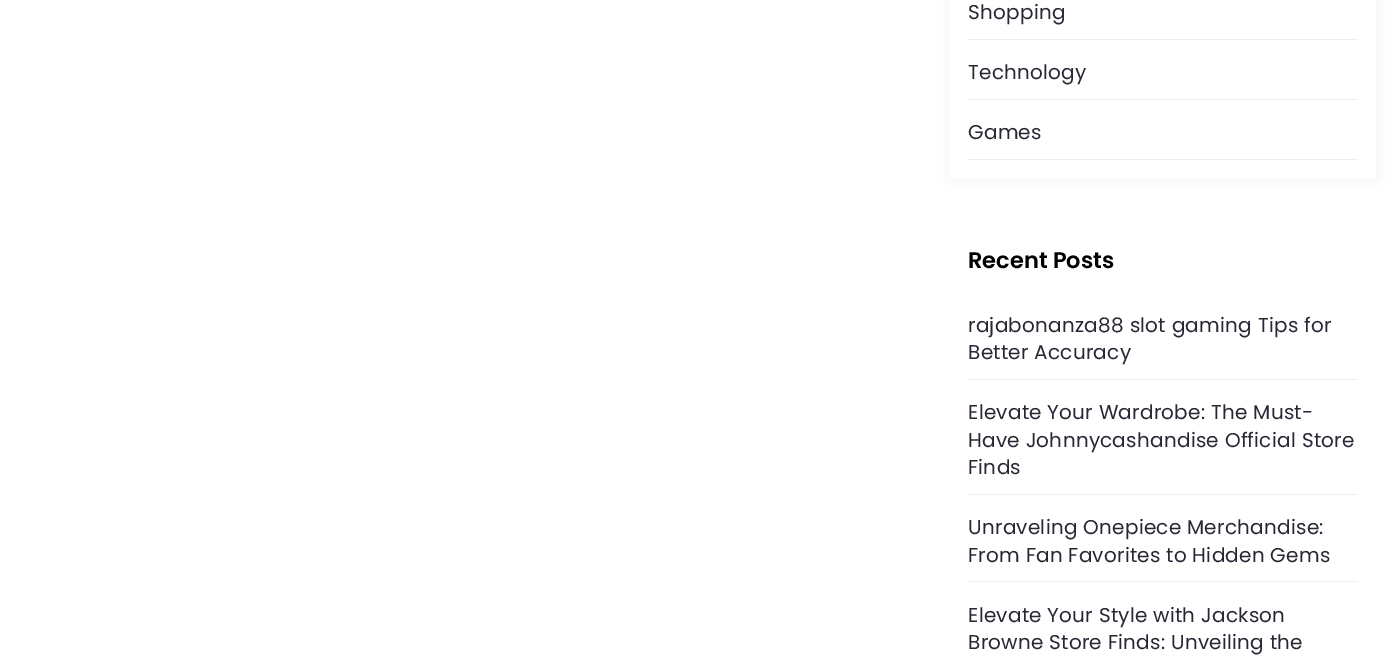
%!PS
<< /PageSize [1394 664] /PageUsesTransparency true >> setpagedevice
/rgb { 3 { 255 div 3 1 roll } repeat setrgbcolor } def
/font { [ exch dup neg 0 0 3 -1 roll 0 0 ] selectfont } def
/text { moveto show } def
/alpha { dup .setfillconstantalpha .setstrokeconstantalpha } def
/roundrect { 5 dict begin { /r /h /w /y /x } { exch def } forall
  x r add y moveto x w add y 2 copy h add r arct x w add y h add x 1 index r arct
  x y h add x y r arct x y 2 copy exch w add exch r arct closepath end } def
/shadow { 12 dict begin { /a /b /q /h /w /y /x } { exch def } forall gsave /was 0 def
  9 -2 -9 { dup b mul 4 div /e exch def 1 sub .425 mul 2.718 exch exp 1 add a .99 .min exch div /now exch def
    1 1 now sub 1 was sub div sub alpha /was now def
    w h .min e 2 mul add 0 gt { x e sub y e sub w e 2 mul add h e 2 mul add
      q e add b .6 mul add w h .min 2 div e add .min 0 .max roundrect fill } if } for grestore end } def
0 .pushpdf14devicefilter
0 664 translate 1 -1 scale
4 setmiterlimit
255 255 255 rgb
0 0 1394 664 rectfill
242 242 242 rgb
950 -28 428 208 4 8 1 shadow
255 255 255 rgb
949 -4 427 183 4 roundrect fill
238 238 238 rgb
968 39 390 1 rectfill
968 99 390 1 rectfill
968 159 390 1 rectfill
968 379 390 1 rectfill
968 494 390 1 rectfill
968 581 390 1 rectfill
/Poppins-Regular 20 font
40 40 53 rgb
968 19 moveto 0.25 0 (Shopping) ashow
968 79 moveto 0.25 0 (Technology) ashow
968 139 moveto 0.25 0 (Games) ashow
/Poppins-SemiBold 22.5 font
0 0 0 rgb
(Recent Posts) 968 268 text
/Poppins-Regular 20 font
40 40 53 rgb
968 332 moveto 0.25 0 (rajabonanza88 slot gaming Tips for) ashow
968 359 moveto 0.25 0 (Better Accuracy) ashow
968 419 moveto 0.25 0 (Elevate Your Wardrobe: The Must-) ashow
968 447 moveto 0.25 0 (Have Johnnycashandise Official Store) ashow
968 474 moveto 0.25 0 (Finds) ashow
968 534 moveto 0.25 0 (Unraveling Onepiece Merchandise:) ashow
968 562 moveto 0.25 0 (From Fan Favorites to Hidden Gems) ashow
968 622 moveto 0.25 0 (Elevate Your Style with Jackson) ashow
968 649 moveto 0.25 0 (Browne Store Finds: Unveiling the) ashow
.poppdf14devicefilter showpage
